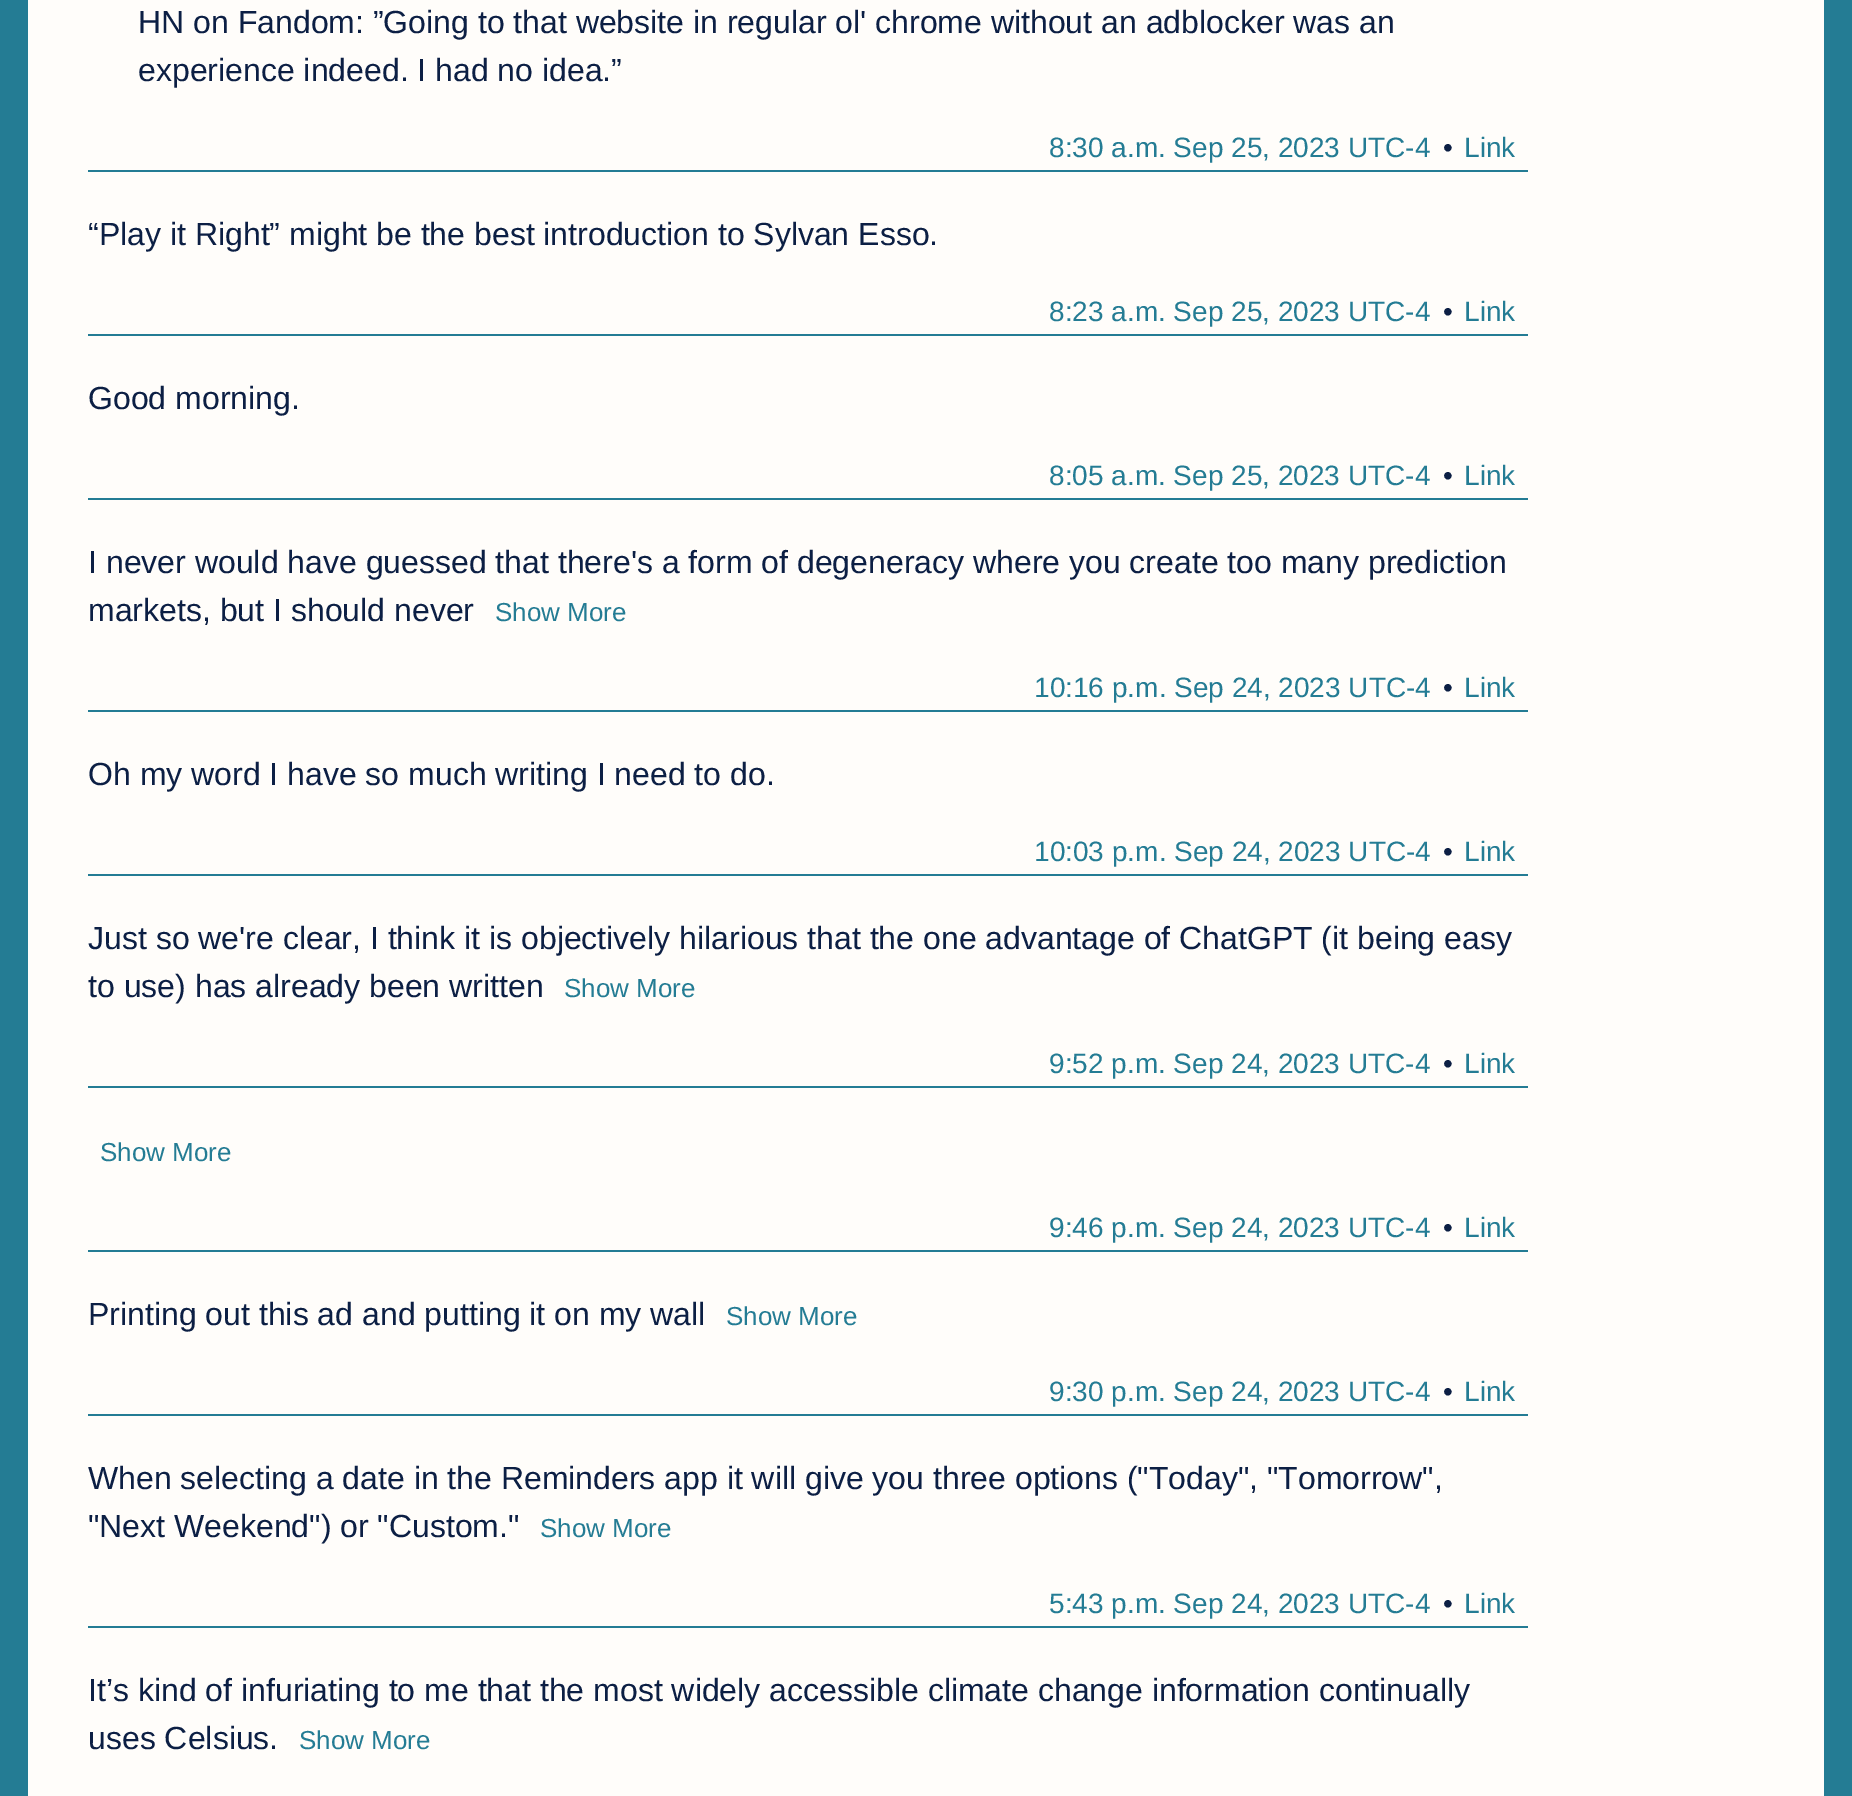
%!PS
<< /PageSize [1852 1796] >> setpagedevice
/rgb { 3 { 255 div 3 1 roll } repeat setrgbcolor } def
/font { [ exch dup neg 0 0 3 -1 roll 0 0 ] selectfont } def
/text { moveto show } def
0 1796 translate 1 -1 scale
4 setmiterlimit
36 124 148 rgb
0 0 1852 1796 rectfill
255 253 250 rgb
28 0 1796 1796 rectfill
36 124 148 rgb
88 170 1440 2 rectfill
88 334 1440 2 rectfill
88 498 1440 2 rectfill
88 710 1440 2 rectfill
88 874 1440 2 rectfill
88 1086 1440 2 rectfill
88 1250 1440 2 rectfill
88 1414 1440 2 rectfill
88 1626 1440 2 rectfill
/LiberationSans-Regular 32 font
12 31 68 rgb
(HN on Fandom: ”Going to that website in regular ol' chrome without an adblocker was an) 138 33 text
(experience indeed. I had no idea.”) 138 81 text
/LiberationSans-Regular 28 font
36 124 148 rgb
(8:30 a.m. Sep 25, 2023 UTC-4) 1049 157 text
12 31 68 rgb
(•) 1443 157 text
36 124 148 rgb
(Link) 1464 157 text
/LiberationSans-Regular 32 font
12 31 68 rgb
(“Play it Right” might be the best introduction to Sylvan Esso.) 88 245 text
/LiberationSans-Regular 28 font
36 124 148 rgb
(8:23 a.m. Sep 25, 2023 UTC-4) 1049 321 text
12 31 68 rgb
(•) 1443 321 text
36 124 148 rgb
(Link) 1464 321 text
/LiberationSans-Regular 32 font
12 31 68 rgb
(Good morning.) 88 409 text
/LiberationSans-Regular 28 font
36 124 148 rgb
(8:05 a.m. Sep 25, 2023 UTC-4) 1049 485 text
12 31 68 rgb
(•) 1443 485 text
36 124 148 rgb
(Link) 1464 485 text
/LiberationSans-Regular 32 font
12 31 68 rgb
(I never would have guessed that there's a form of degeneracy where you create too many prediction) 88 573 text
(markets, but I should never) 88 621 text
/LiberationSans-Regular 26 font
36 124 148 rgb
(Show More) 495 621 text
/LiberationSans-Regular 28 font
(10:16 p.m. Sep 24, 2023 UTC-4) 1034 697 text
12 31 68 rgb
(•) 1443 697 text
36 124 148 rgb
(Link) 1464 697 text
/LiberationSans-Regular 32 font
12 31 68 rgb
(Oh my word I have so much writing I need to do.) 88 785 text
/LiberationSans-Regular 28 font
36 124 148 rgb
(10:03 p.m. Sep 24, 2023 UTC-4) 1034 861 text
12 31 68 rgb
(•) 1443 861 text
36 124 148 rgb
(Link) 1464 861 text
/LiberationSans-Regular 32 font
12 31 68 rgb
(Just so we're clear, I think it is objectively hilarious that the one advantage of ChatGPT \(it being easy) 88 949 text
(to use\) has already been written) 88 997 text
/LiberationSans-Regular 26 font
36 124 148 rgb
(Show More) 564 997 text
/LiberationSans-Regular 28 font
(9:52 p.m. Sep 24, 2023 UTC-4) 1049 1073 text
12 31 68 rgb
(•) 1443 1073 text
36 124 148 rgb
(Link) 1464 1073 text
/LiberationSans-Regular 26 font
(Show More) 100 1161 text
/LiberationSans-Regular 28 font
(9:46 p.m. Sep 24, 2023 UTC-4) 1049 1237 text
12 31 68 rgb
(•) 1443 1237 text
36 124 148 rgb
(Link) 1464 1237 text
/LiberationSans-Regular 32 font
12 31 68 rgb
(Printing out this ad and putting it on my wall) 88 1325 text
/LiberationSans-Regular 26 font
36 124 148 rgb
(Show More) 726 1325 text
/LiberationSans-Regular 28 font
(9:30 p.m. Sep 24, 2023 UTC-4) 1049 1401 text
12 31 68 rgb
(•) 1443 1401 text
36 124 148 rgb
(Link) 1464 1401 text
/LiberationSans-Regular 32 font
12 31 68 rgb
(When selecting a date in the Reminders app it will give you three options \("Today", "Tomorrow",) 88 1489 text
("Next Weekend"\) or "Custom.") 88 1537 text
/LiberationSans-Regular 26 font
36 124 148 rgb
(Show More) 540 1537 text
/LiberationSans-Regular 28 font
(5:43 p.m. Sep 24, 2023 UTC-4) 1049 1613 text
12 31 68 rgb
(•) 1443 1613 text
36 124 148 rgb
(Link) 1464 1613 text
/LiberationSans-Regular 32 font
12 31 68 rgb
(It’s kind of infuriating to me that the most widely accessible climate change information continually) 88 1701 text
(uses Celsius.) 88 1749 text
/LiberationSans-Regular 26 font
36 124 148 rgb
(Show More) 299 1749 text
showpage
